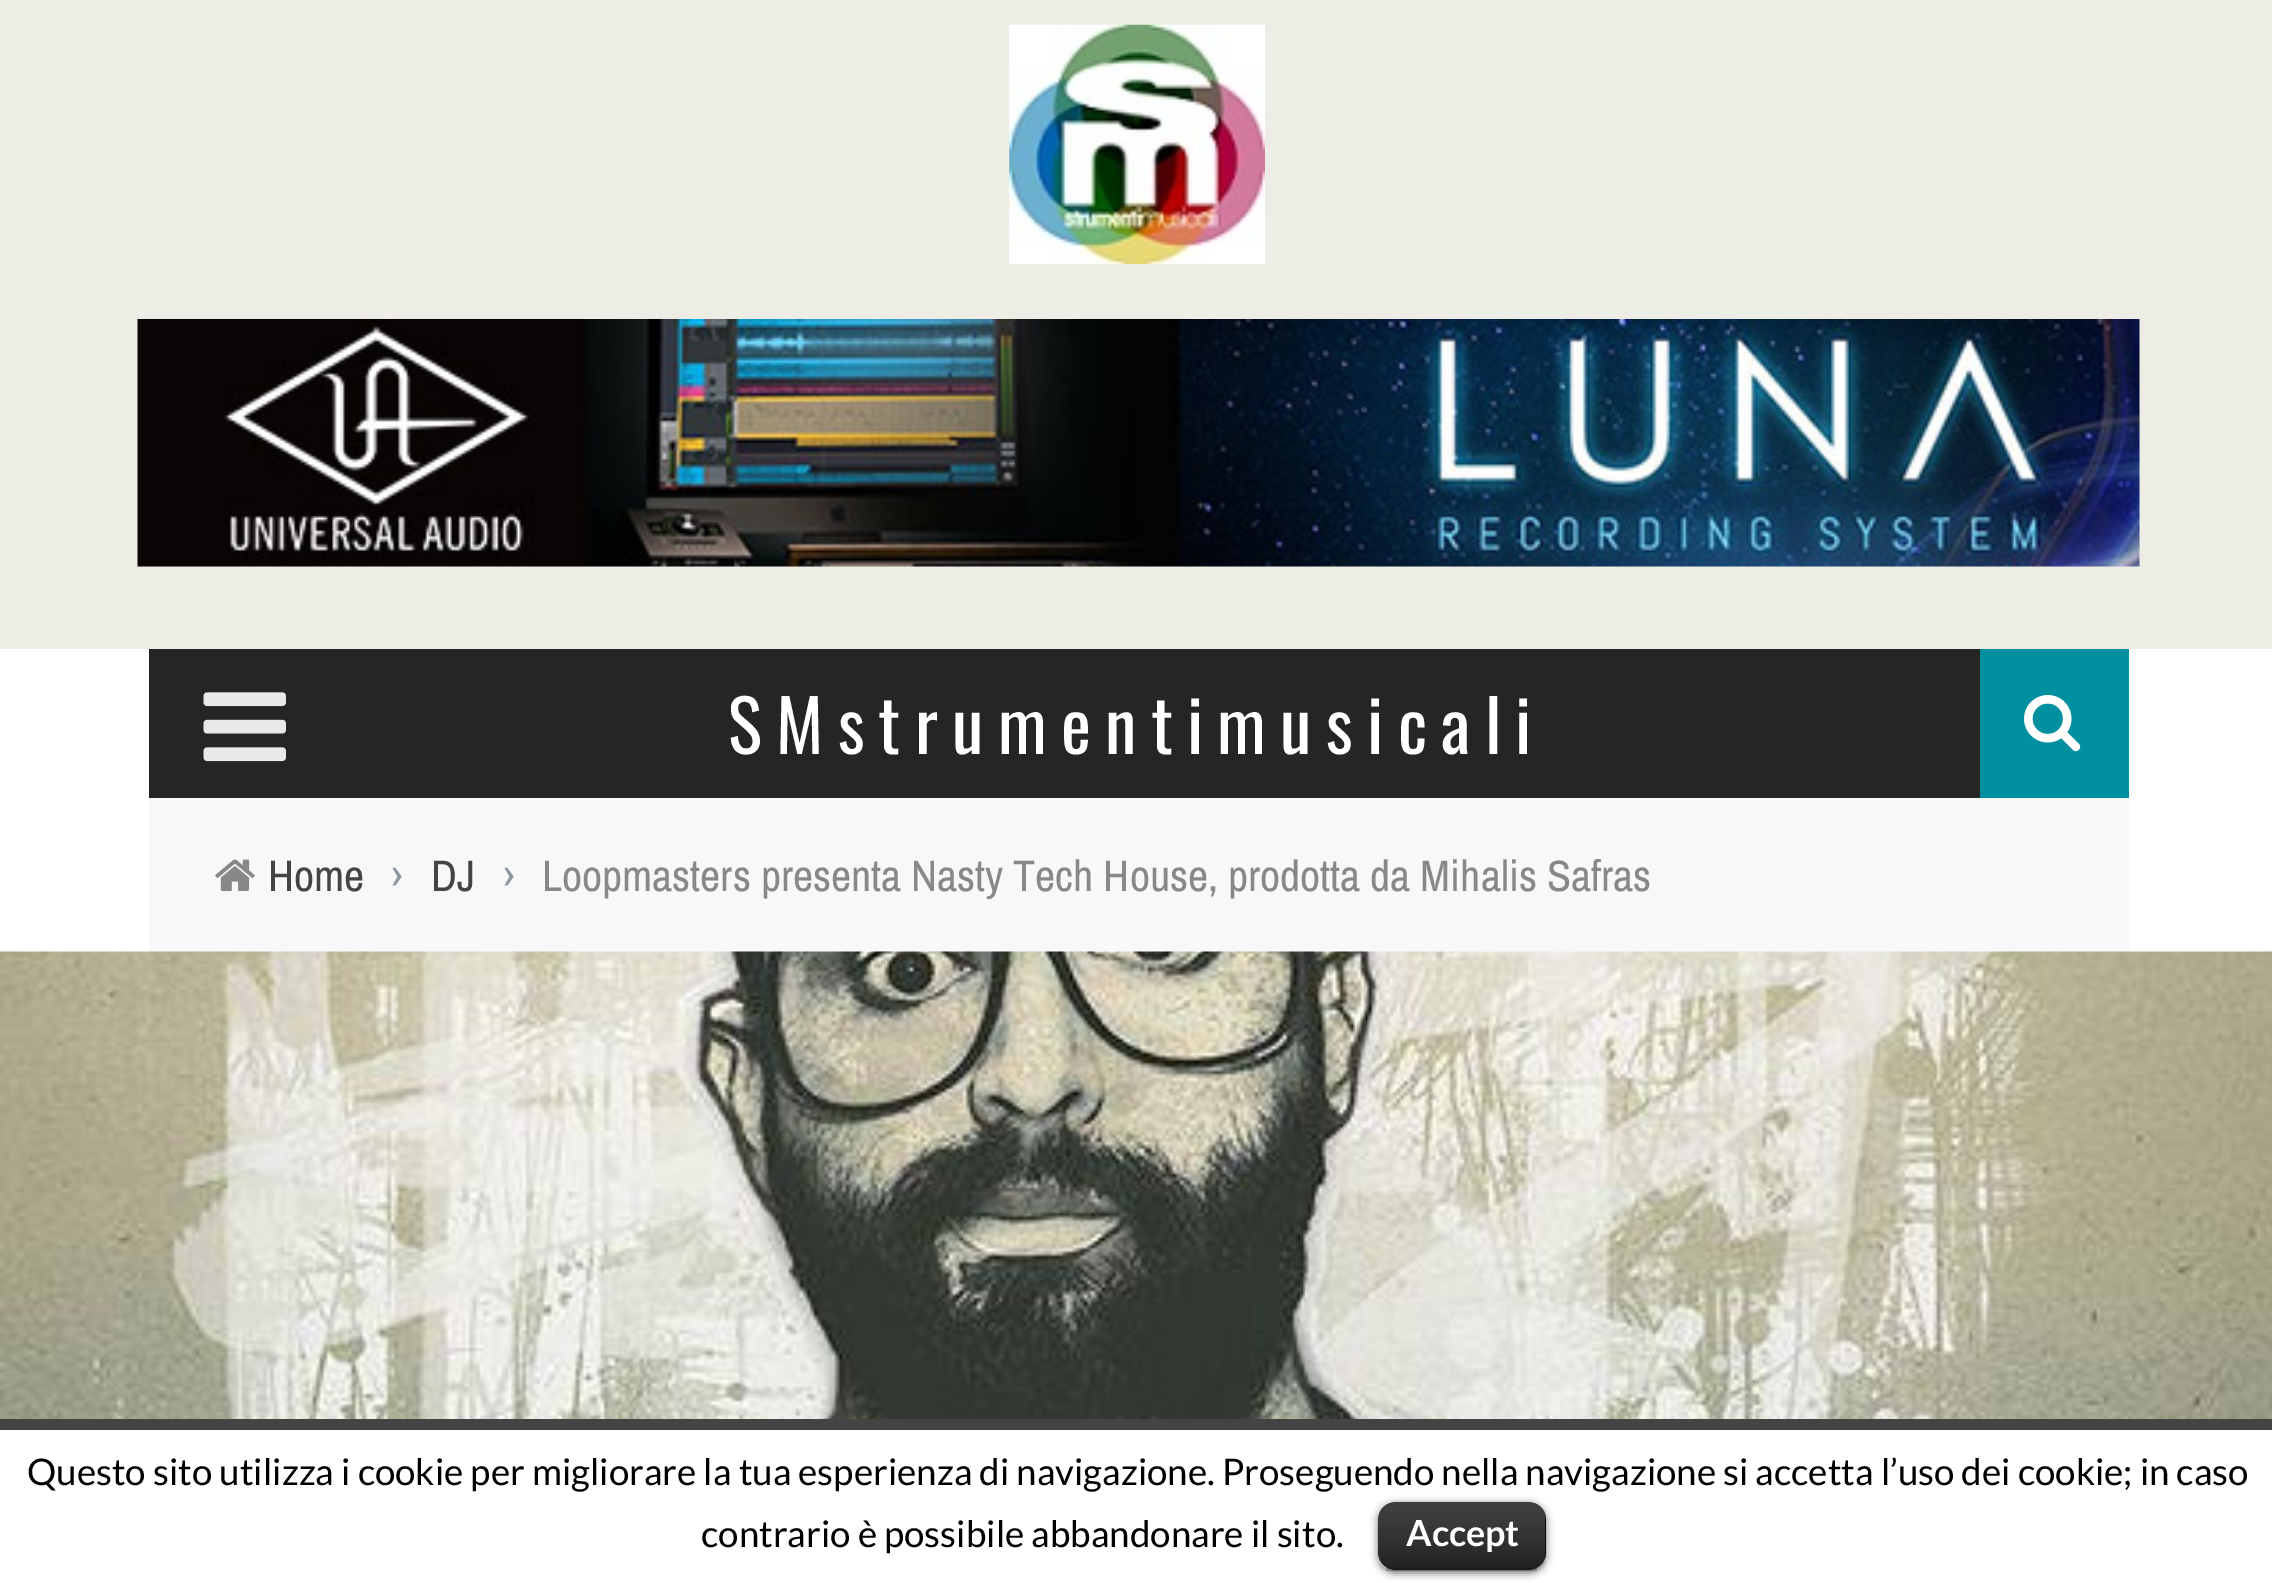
%!PS
<< /PageSize [2272 1583] /PageUsesTransparency true >> setpagedevice
/rgb { 3 { 255 div 3 1 roll } repeat setrgbcolor } def
/font { [ exch dup neg 0 0 3 -1 roll 0 0 ] selectfont } def
/text { moveto show } def
/alpha { dup .setfillconstantalpha .setstrokeconstantalpha } def
/roundrect { 5 dict begin { /r /h /w /y /x } { exch def } forall
  x r add y moveto x w add y 2 copy h add r arct x w add y h add x 1 index r arct
  x y h add x y r arct x y 2 copy exch w add exch r arct closepath end } def
/shadow { 12 dict begin { /a /b /q /h /w /y /x } { exch def } forall gsave /was 0 def
  9 -2 -9 { dup b mul 4 div /e exch def 1 sub .425 mul 2.718 exch exp 1 add a .99 .min exch div /now exch def
    1 1 now sub 1 was sub div sub alpha /was now def
    w h .min e 2 mul add 0 gt { x e sub y e sub w e 2 mul add h e 2 mul add
      q e add b .6 mul add w h .min 2 div e add .min 0 .max roundrect fill } if } for grestore end } def
/picture { 5 dict begin { /h /w /y /x /name } { exch def } forall
  gsave x y translate w h scale
  w h 8 [w 0 0 h 0 0] name (r) file false 3 colorimage grestore end } def
0 .pushpdf14devicefilter
0 1583 translate 1 -1 scale
4 setmiterlimit
255 255 255 rgb
0 0 2272 1583 rectfill
237 237 230 rgb
0 0 2272 649 rectfill
(img_01.rgb) 1009 24 256 240 picture
(img_02.rgb) 137 319 2003 248 picture
37 37 37 rgb
149 649 1831 149 rectfill
(img_03.rgb) 203 692 83 70 picture
0 144 160 rgb
1980 649 149 149 rectfill
(img_04.rgb) 2024 695 57 57 picture
248 248 248 rgb
149 798 1980 154 rectfill
(img_05.rgb) 215 859 40 32 picture
(img_06.rgb) 0 951 2272 468 picture
68 68 68 rgb
0 1419 2272 11 rectfill
0 0 0 rgb
1378 1504 168 69 17 4 0.6 shadow
1378 1502 168 68 17 roundrect fill
(img_07.rgb) 1378 1502 168 68 picture
0.25 alpha
1386 1568 151 3 rectfill
/Oswald-Regular 71.5 font
1 alpha
255 255 255 rgb
728 754 moveto 14.25 0 (SMstrumentimusicali) ashow
/ArchivoNarrow-Regular 44 font
68 68 68 rgb
(Home) 268 891 text
141 151 161 rgb
(›) 391 891 text
68 68 68 rgb
(DJ) 431 891 text
141 151 161 rgb
(›) 503 891 text
136 136 136 rgb
(Loopmasters presenta Nasty Tech House, prodotta da Mihalis Safras) 542 891 text
/Lato-Regular 36.67 font
0 0 0 rgb
(Questo sito utilizza i cookie per migliorare la tua esperienza di navigazione. Proseguendo nella navigazione si accetta l’uso dei cookie; in caso) 27 1485 text
(contrario è possibile abbandonare il sito.) 701 1547 text
/Lato-Bold 36 font
255 255 255 rgb
(Accept) 1406 1546 text
.poppdf14devicefilter showpage
